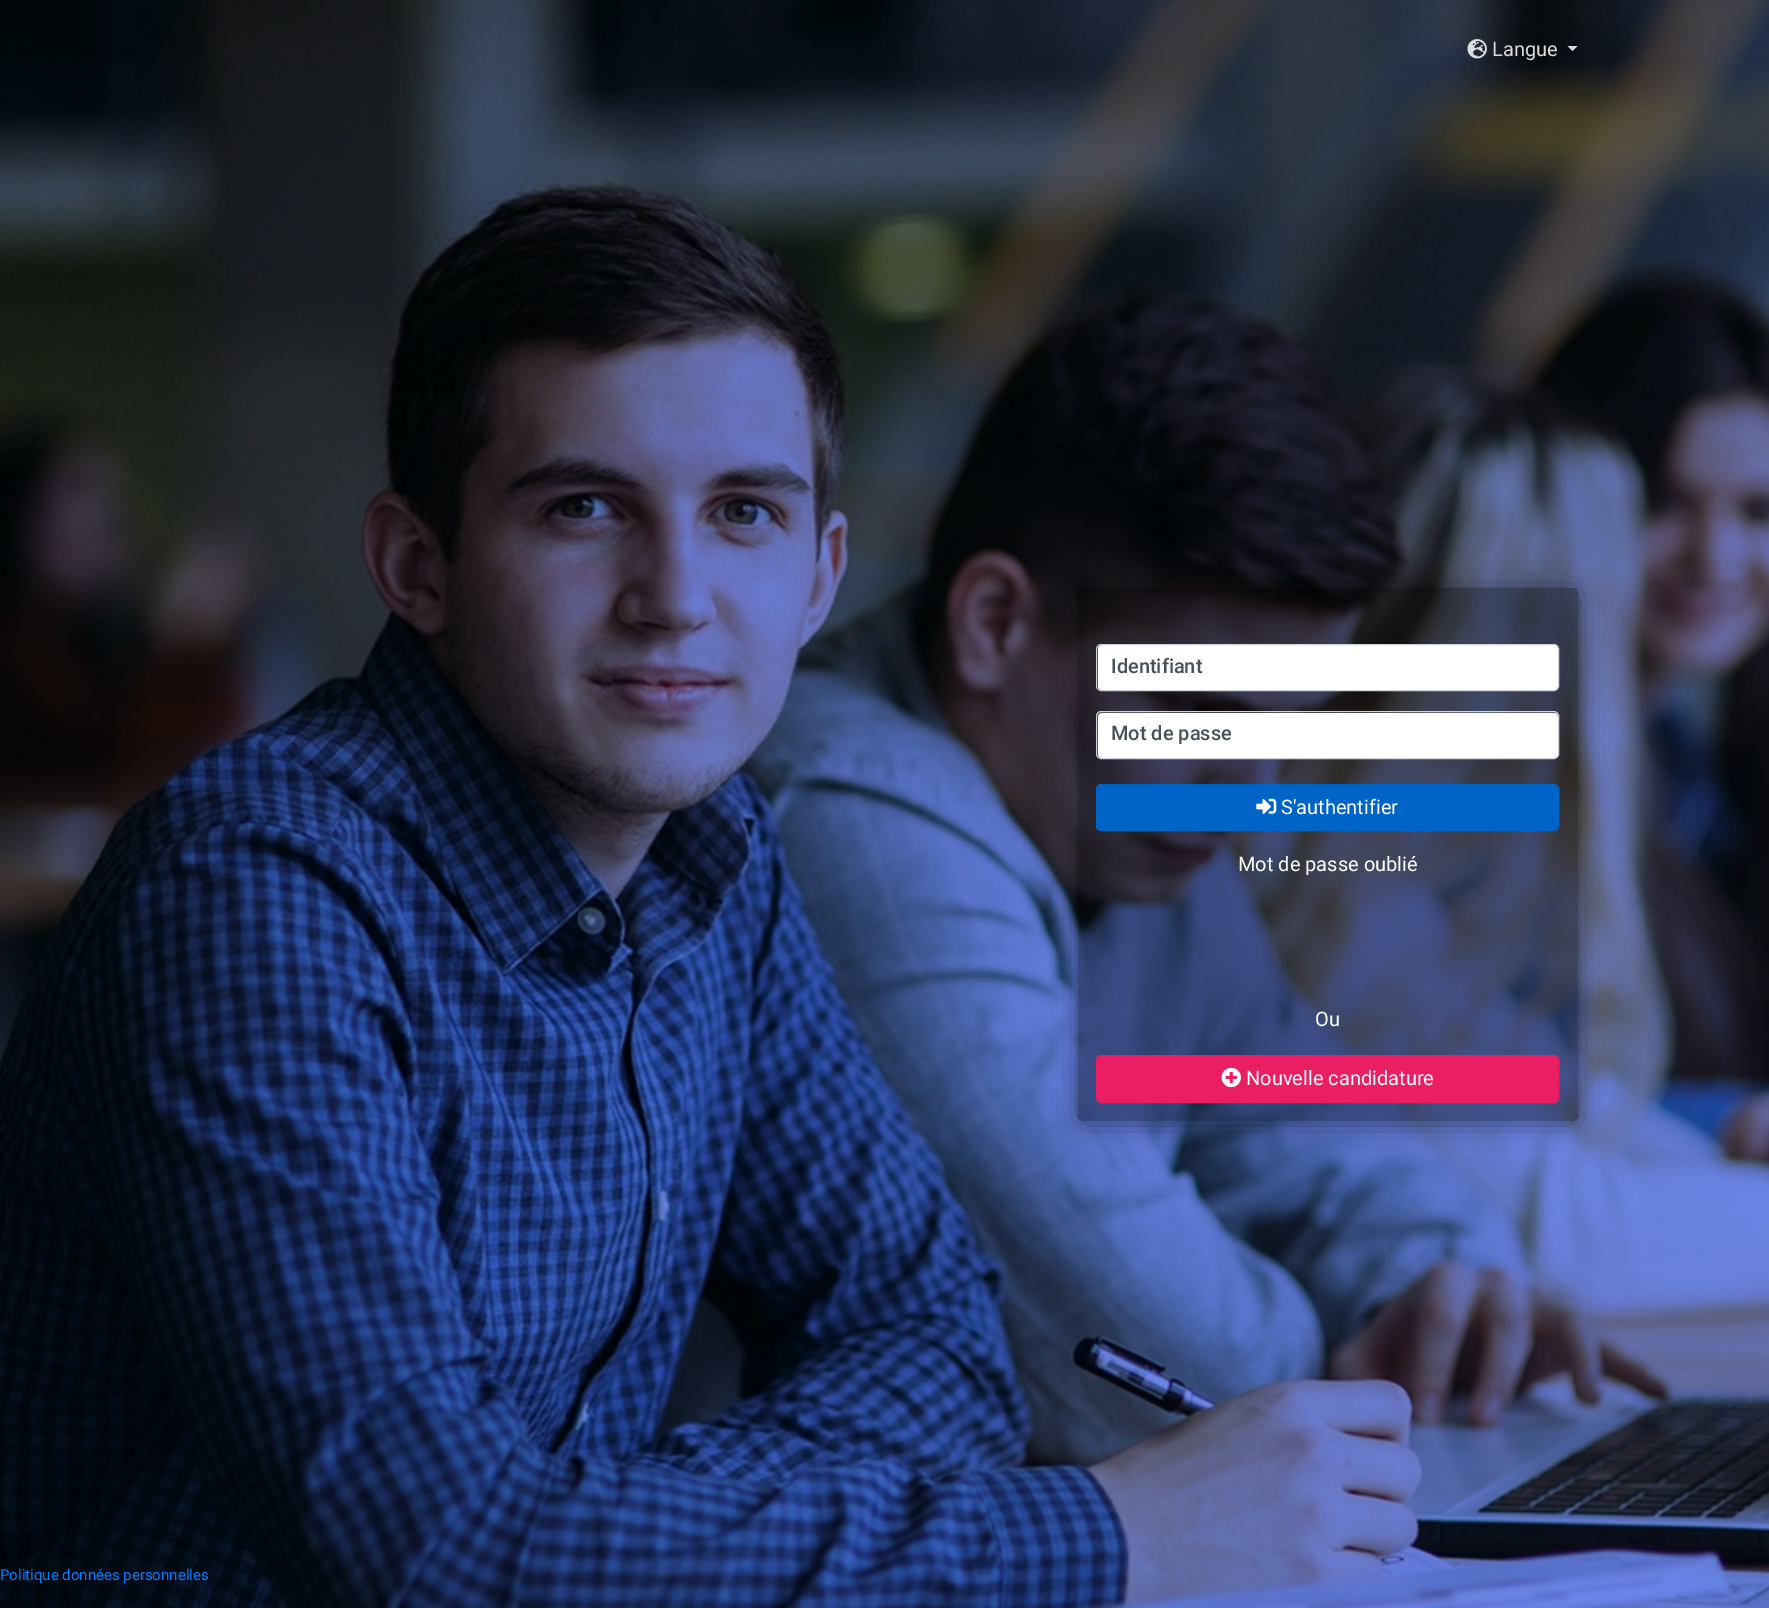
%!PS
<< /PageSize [1769 1608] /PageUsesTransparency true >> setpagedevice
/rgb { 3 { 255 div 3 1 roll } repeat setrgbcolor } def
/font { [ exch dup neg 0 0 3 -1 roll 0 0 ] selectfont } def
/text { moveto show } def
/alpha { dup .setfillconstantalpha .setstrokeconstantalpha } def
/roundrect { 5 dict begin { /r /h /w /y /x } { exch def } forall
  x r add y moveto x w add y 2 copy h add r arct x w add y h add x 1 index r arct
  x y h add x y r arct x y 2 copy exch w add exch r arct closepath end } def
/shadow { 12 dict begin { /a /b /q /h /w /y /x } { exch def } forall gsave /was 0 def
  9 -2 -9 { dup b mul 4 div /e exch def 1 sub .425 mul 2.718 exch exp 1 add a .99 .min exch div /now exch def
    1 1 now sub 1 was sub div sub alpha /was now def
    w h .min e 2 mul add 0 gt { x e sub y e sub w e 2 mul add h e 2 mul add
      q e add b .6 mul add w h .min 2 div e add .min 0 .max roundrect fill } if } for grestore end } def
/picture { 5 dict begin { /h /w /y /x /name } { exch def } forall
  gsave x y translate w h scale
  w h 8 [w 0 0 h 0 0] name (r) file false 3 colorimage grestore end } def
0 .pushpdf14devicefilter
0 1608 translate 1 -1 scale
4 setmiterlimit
255 255 255 rgb
0 0 1769 1608 rectfill
(img_01.rgb) 0 0 1769 1608 picture
(img_02.rgb) 1467 39 20 20 picture
218 219 220 rgb
1567.5 46 moveto 10 0 rlineto -5 5 rlineto closepath fill
gsave
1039 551 moveto 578 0 rlineto 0 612 rlineto -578 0 rlineto closepath 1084 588 moveto 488 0 rlineto 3.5 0 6 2.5 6 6 rcurveto 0 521 rlineto 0 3.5 -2.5 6 -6 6 rcurveto -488 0 rlineto -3.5 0 -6 -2.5 -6 -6 rcurveto 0 -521 rlineto 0 -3.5 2.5 -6 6 -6 rcurveto closepath eoclip newpath
0 0 0 rgb
1078 590 500 534 6 12.5 0.46 shadow
grestore
0.37 alpha
0 0 0 rgb
1078 588 500 533 6 roundrect fill
1 alpha
255 255 255 rgb
1098 645 460 45 4 roundrect fill
206 212 218 rgb
1096.5 644.5 462 46 4.5 roundrect stroke
255 255 255 rgb
1098 713 460 45 4 roundrect fill
206 212 218 rgb
1096.5 711.5 462 47 4.5 roundrect stroke
0 100 198 rgb
1096.5 784.5 462 46 4.5 roundrect gsave fill grestore
stroke
(img_03.rgb) 1256 798 21 16 picture
233 30 99 rgb
1096.5 1055.5 462 47 4.5 roundrect gsave fill grestore
stroke
(img_04.rgb) 1221 1067 20 21 picture
/Roboto-Regular 20 font
219 219 220 rgb
(Langue) 1492 56 text
/Roboto-Medium 20 font
73 80 87 rgb
(Identifiant) 1111 673 text
(Mot de passe) 1111 740 text
/Roboto-Regular 20 font
255 255 255 rgb
(S'authentifier) 1281 814 text
(Mot de passe oublié) 1238 871 text
(Ou) 1315 1026 text
(Nouvelle candidature) 1246 1085 text
/Roboto-Regular 15 font
0 123 255 rgb
(Politique données personnelles) 0 1580 text
.poppdf14devicefilter showpage
